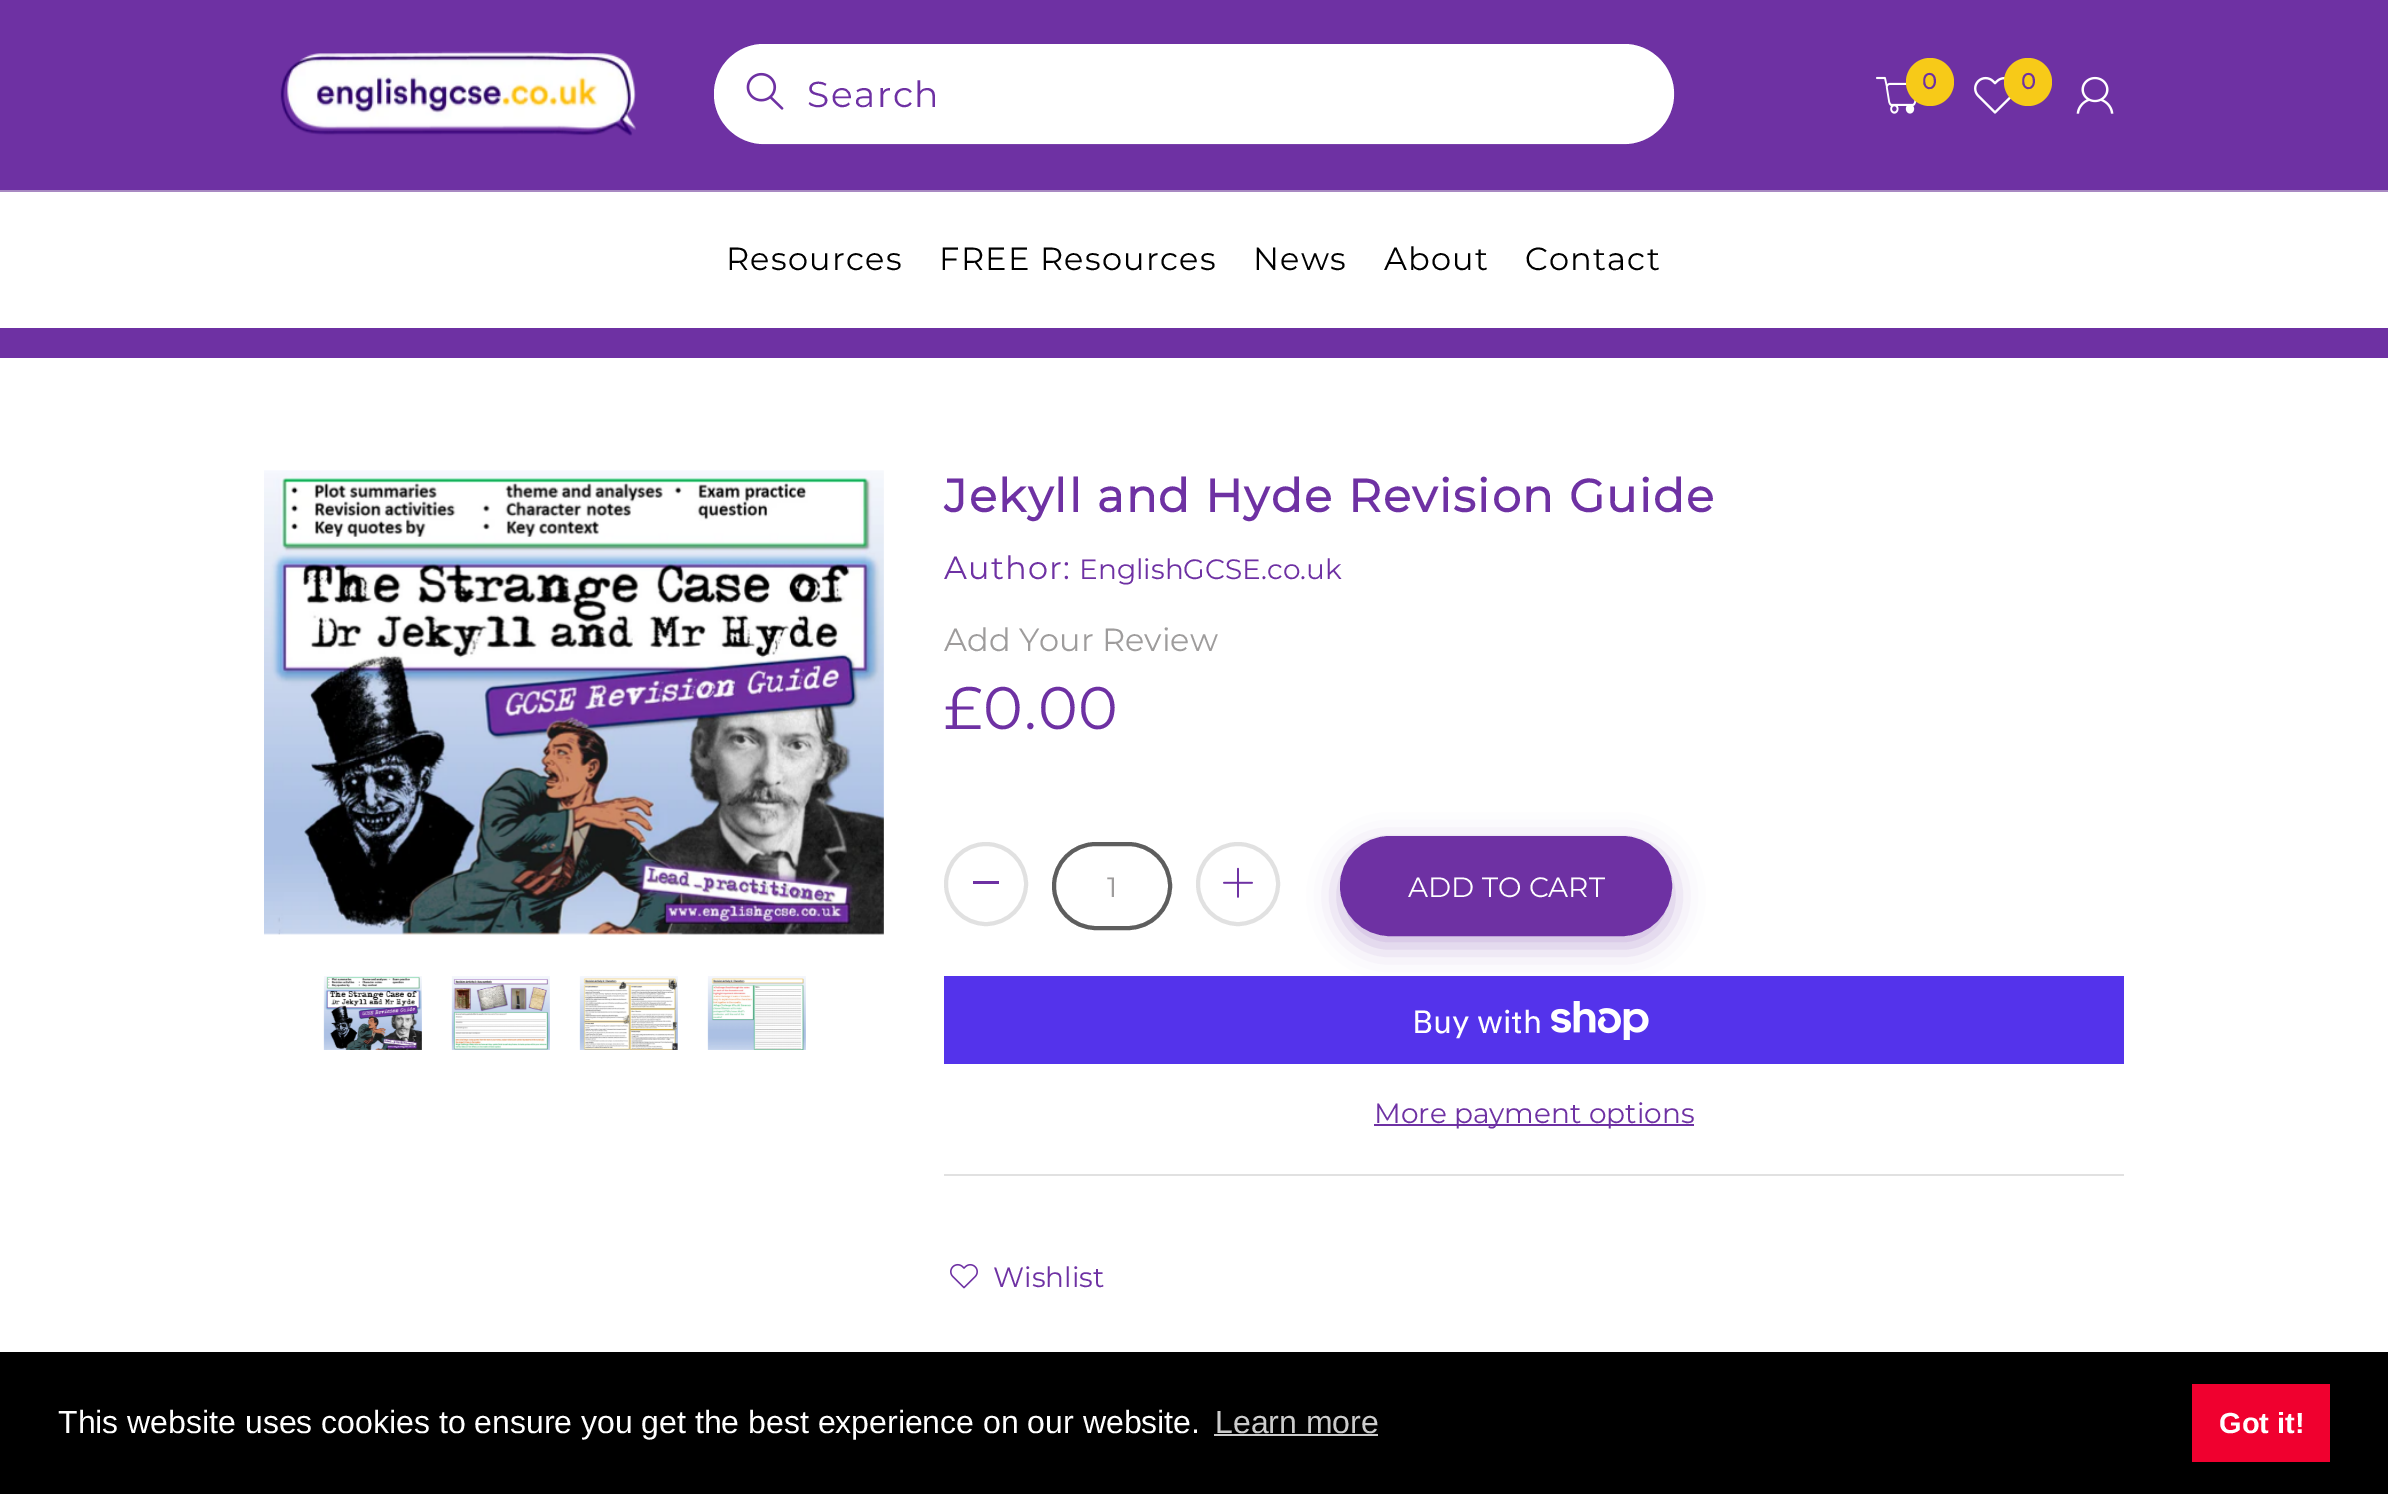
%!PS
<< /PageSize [2388 1494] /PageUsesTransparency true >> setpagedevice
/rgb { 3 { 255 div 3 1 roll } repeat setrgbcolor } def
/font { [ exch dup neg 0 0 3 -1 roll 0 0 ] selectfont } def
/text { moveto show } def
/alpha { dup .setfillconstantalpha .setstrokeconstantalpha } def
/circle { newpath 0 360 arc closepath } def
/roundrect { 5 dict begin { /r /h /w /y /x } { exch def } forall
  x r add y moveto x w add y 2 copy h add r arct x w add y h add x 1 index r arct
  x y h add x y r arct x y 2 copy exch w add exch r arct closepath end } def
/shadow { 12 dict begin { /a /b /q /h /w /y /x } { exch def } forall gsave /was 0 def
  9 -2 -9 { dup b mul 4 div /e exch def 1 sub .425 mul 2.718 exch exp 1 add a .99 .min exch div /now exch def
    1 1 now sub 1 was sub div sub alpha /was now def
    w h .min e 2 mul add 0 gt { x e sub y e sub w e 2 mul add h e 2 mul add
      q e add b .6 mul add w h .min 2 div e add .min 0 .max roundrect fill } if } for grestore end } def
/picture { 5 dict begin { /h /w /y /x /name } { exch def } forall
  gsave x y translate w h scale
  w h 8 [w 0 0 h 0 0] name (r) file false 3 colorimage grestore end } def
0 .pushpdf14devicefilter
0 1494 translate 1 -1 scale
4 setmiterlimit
255 255 255 rgb
0 0 2388 1494 rectfill
110 49 163 rgb
0 0 2388 190 rectfill
168 137 194 rgb
0 190 2388 2 rectfill
(img_01.rgb) 280 51 356 85 picture
255 255 255 rgb
714 44 960 100 50 roundrect fill
0.3 alpha
2 setlinewidth
715 45 958 98 49 roundrect stroke
1 alpha
(img_02.rgb) 746 72 38 38 picture
(img_03.rgb) 1876 76 41 38 picture
247 202 24 rgb
1930 82 24 circle fill
(img_04.rgb) 1974 76 37 38 picture
2028 82 24 circle fill
(img_05.rgb) 2076 76 38 38 picture
110 49 163 rgb
0 328 2388 30 rectfill
(img_06.rgb) 264 470 620 465 picture
(img_07.rgb) 323 976 99 74 picture
(img_08.rgb) 451 976 99 74 picture
(img_09.rgb) 579 976 99 74 picture
(img_10.rgb) 707 976 99 74 picture
225 225 225 rgb
944 1174 1180 2 rectfill
4 setlinewidth
986 884 40 circle stroke
110 49 163 rgb
973 881 26 3 rectfill
225 225 225 rgb
1238 884 40 circle stroke
(img_11.rgb) 1223 867 30 31 picture
94 94 94 rgb
1054 844 116 84 42 roundrect stroke
110 49 163 rgb
1340 846 332 100 50 15 0.36 shadow
1341 837 330 98 49 roundrect gsave fill grestore
2 setlinewidth
stroke
84 51 235 rgb
944 976 1180 88 rectfill
(img_12.rgb) 1551 1001 98 39 picture
110 49 163 rgb
1374 1124 320 2 rectfill
(img_13.rgb) 950 1263 28 26 picture
0 0 0 rgb
0 1352 2388 142 rectfill
204 204 204 rgb
1214 1434 164 2 rectfill
240 0 47 rgb
2192 1384 138 78 rectfill
/Montserrat-Thin 36 font
110 49 163 rgb
807 107 moveto 1.5 0 (Search) ashow
/Montserrat-Bold 22 font
(0) 1922 89 text
(0) 2021 89 text
/Montserrat-Thin 32 font
0 0 0 rgb
726 270 moveto 1.25 0 (Resources) ashow
939 270 moveto 1.25 0 (FREE Resources) ashow
1253 270 moveto 1.25 0 (News) ashow
1384 270 moveto 1.25 0 (About) ashow
1525 270 moveto 1.25 0 (Contact) ashow
/Montserrat-Bold 46 font
110 49 163 rgb
944 512 moveto 1.8 0 (Jekyll and Hyde Revision Guide) ashow
/Montserrat-Thin 32 font
944 579 moveto 1.25 0 (Author:) ashow
/Montserrat-Thin 28 font
(EnglishGCSE.co.uk) 1079 579 text
/Montserrat-Thin 32 font
158 156 156 rgb
(Add Your Review) 944 651 text
/Montserrat-Thin 60 font
110 49 163 rgb
944 729 moveto 1 0 (£0.00) ashow
/Montserrat-Thin 28 font
158 156 156 rgb
(1) 1107 897 text
255 255 255 rgb
(ADD TO CART) 1408 897 text
/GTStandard-Regular 32 font
(Buy with) 1412 1033 text
/Montserrat-Thin 28 font
110 49 163 rgb
(More payment options) 1374 1123 text
(Wishlist) 993 1287 text
/LiberationSans-Regular 32 font
255 255 255 rgb
(This website uses cookies to ensure you get the best experience on our website.) 58 1433 text
204 204 204 rgb
(Learn more) 1215 1433 text
/LiberationSans-Bold 29 font
255 255 255 rgb
(Got it!) 2219 1433 text
.poppdf14devicefilter showpage
